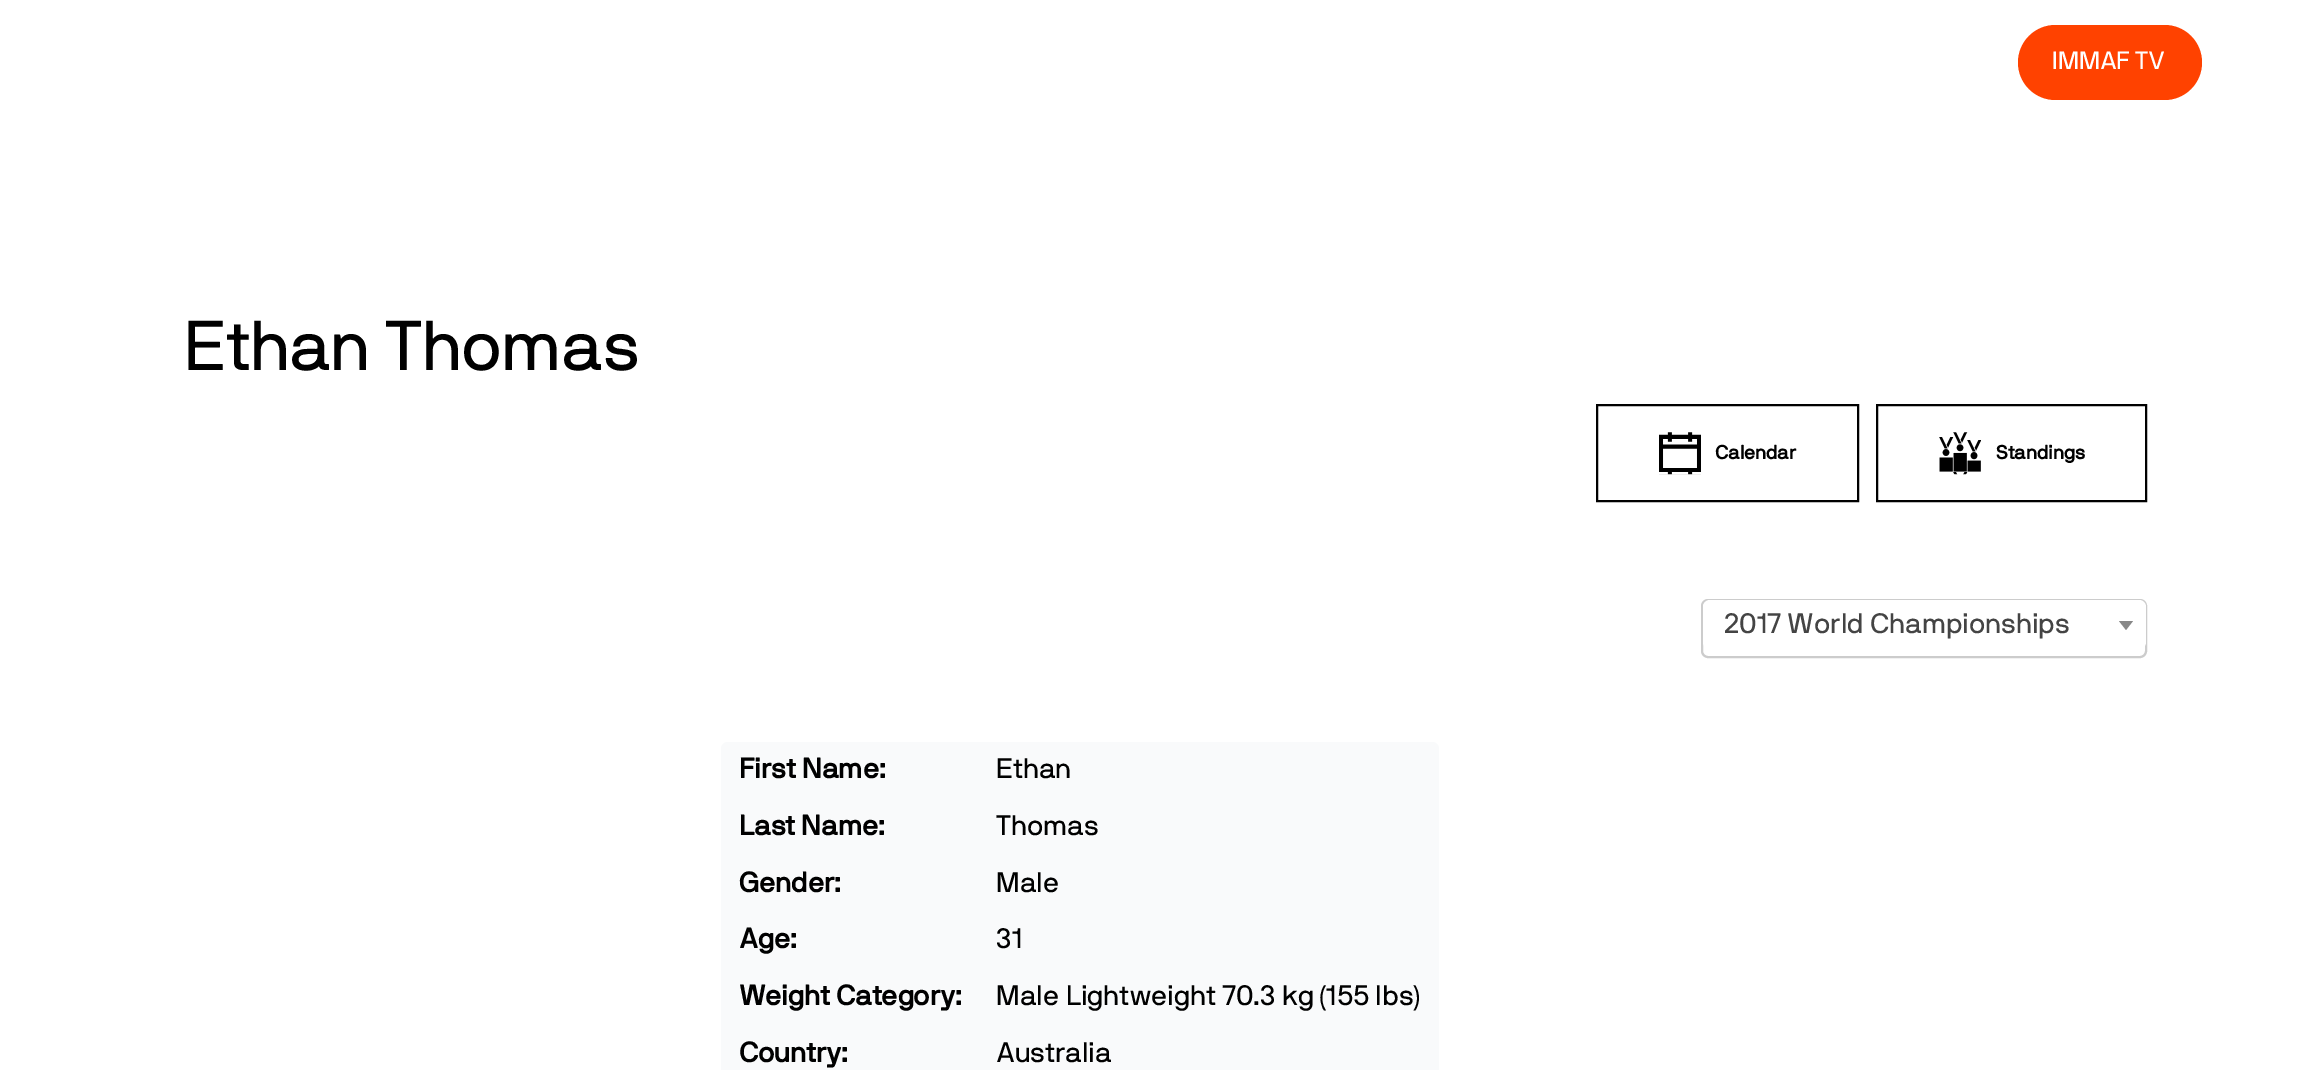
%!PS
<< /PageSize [2317 1070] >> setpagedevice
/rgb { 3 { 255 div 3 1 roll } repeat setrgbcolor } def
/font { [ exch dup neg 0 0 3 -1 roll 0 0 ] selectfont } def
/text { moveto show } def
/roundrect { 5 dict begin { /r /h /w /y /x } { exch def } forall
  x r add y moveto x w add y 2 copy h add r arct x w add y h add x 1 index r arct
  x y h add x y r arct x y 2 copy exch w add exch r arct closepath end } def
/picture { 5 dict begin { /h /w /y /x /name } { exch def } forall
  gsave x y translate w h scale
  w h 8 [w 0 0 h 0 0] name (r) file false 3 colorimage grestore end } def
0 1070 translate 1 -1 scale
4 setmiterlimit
255 255 255 rgb
0 0 2317 1070 rectfill
255 66 0 rgb
2018 25 184 75 37.5 roundrect fill
0 0 0 rgb
2 setlinewidth
1597 405 261 96 rectstroke
(img_01.rgb) 1659 432 42 43 picture
1877 405 269 96 rectstroke
(img_02.rgb) 1939 432 42 43 picture
204 204 204 rgb
1702 600 444 57 6 roundrect stroke
255 255 255 rgb
1703 600 443 49 7 roundrect fill
136 136 136 rgb
2119 621 moveto 14 0 rlineto -7 9 rlineto closepath fill
249 250 251 rgb
721 742 718 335 7 roundrect fill
/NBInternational-Regular 25 font
255 255 255 rgb
2052 69 moveto -0.25 0 (IMMAF TV) ashow
/NBInternational-Regular 70 font
0 0 0 rgb
184 370 moveto -0.5 0 (Ethan Thomas) ashow
/NBInternational-Bold 19.25 font
(Calendar) 1715 459 text
(Standings) 1996 459 text
/NBInternational-Regular 28 font
68 68 68 rgb
(2017 World Championships) 1724 633 text
/NBInternational-Bold 28 font
0 0 0 rgb
(First Name:) 739 778 text
/NBInternational-Regular 28 font
(Ethan) 996 778 text
/NBInternational-Bold 28 font
(Last Name:) 739 835 text
/NBInternational-Regular 28 font
(Thomas) 996 835 text
/NBInternational-Bold 28 font
(Gender:) 739 892 text
/NBInternational-Regular 28 font
(Male) 996 892 text
/NBInternational-Bold 28 font
(Age:) 739 948 text
/NBInternational-Regular 28 font
(31) 996 948 text
/NBInternational-Bold 28 font
(Weight Category:) 739 1005 text
/NBInternational-Regular 28 font
(Male Lightweight 70.3 kg \(155 lbs\)) 996 1005 text
/NBInternational-Bold 28 font
(Country:) 739 1062 text
/NBInternational-Regular 28 font
(Australia) 996 1062 text
showpage
